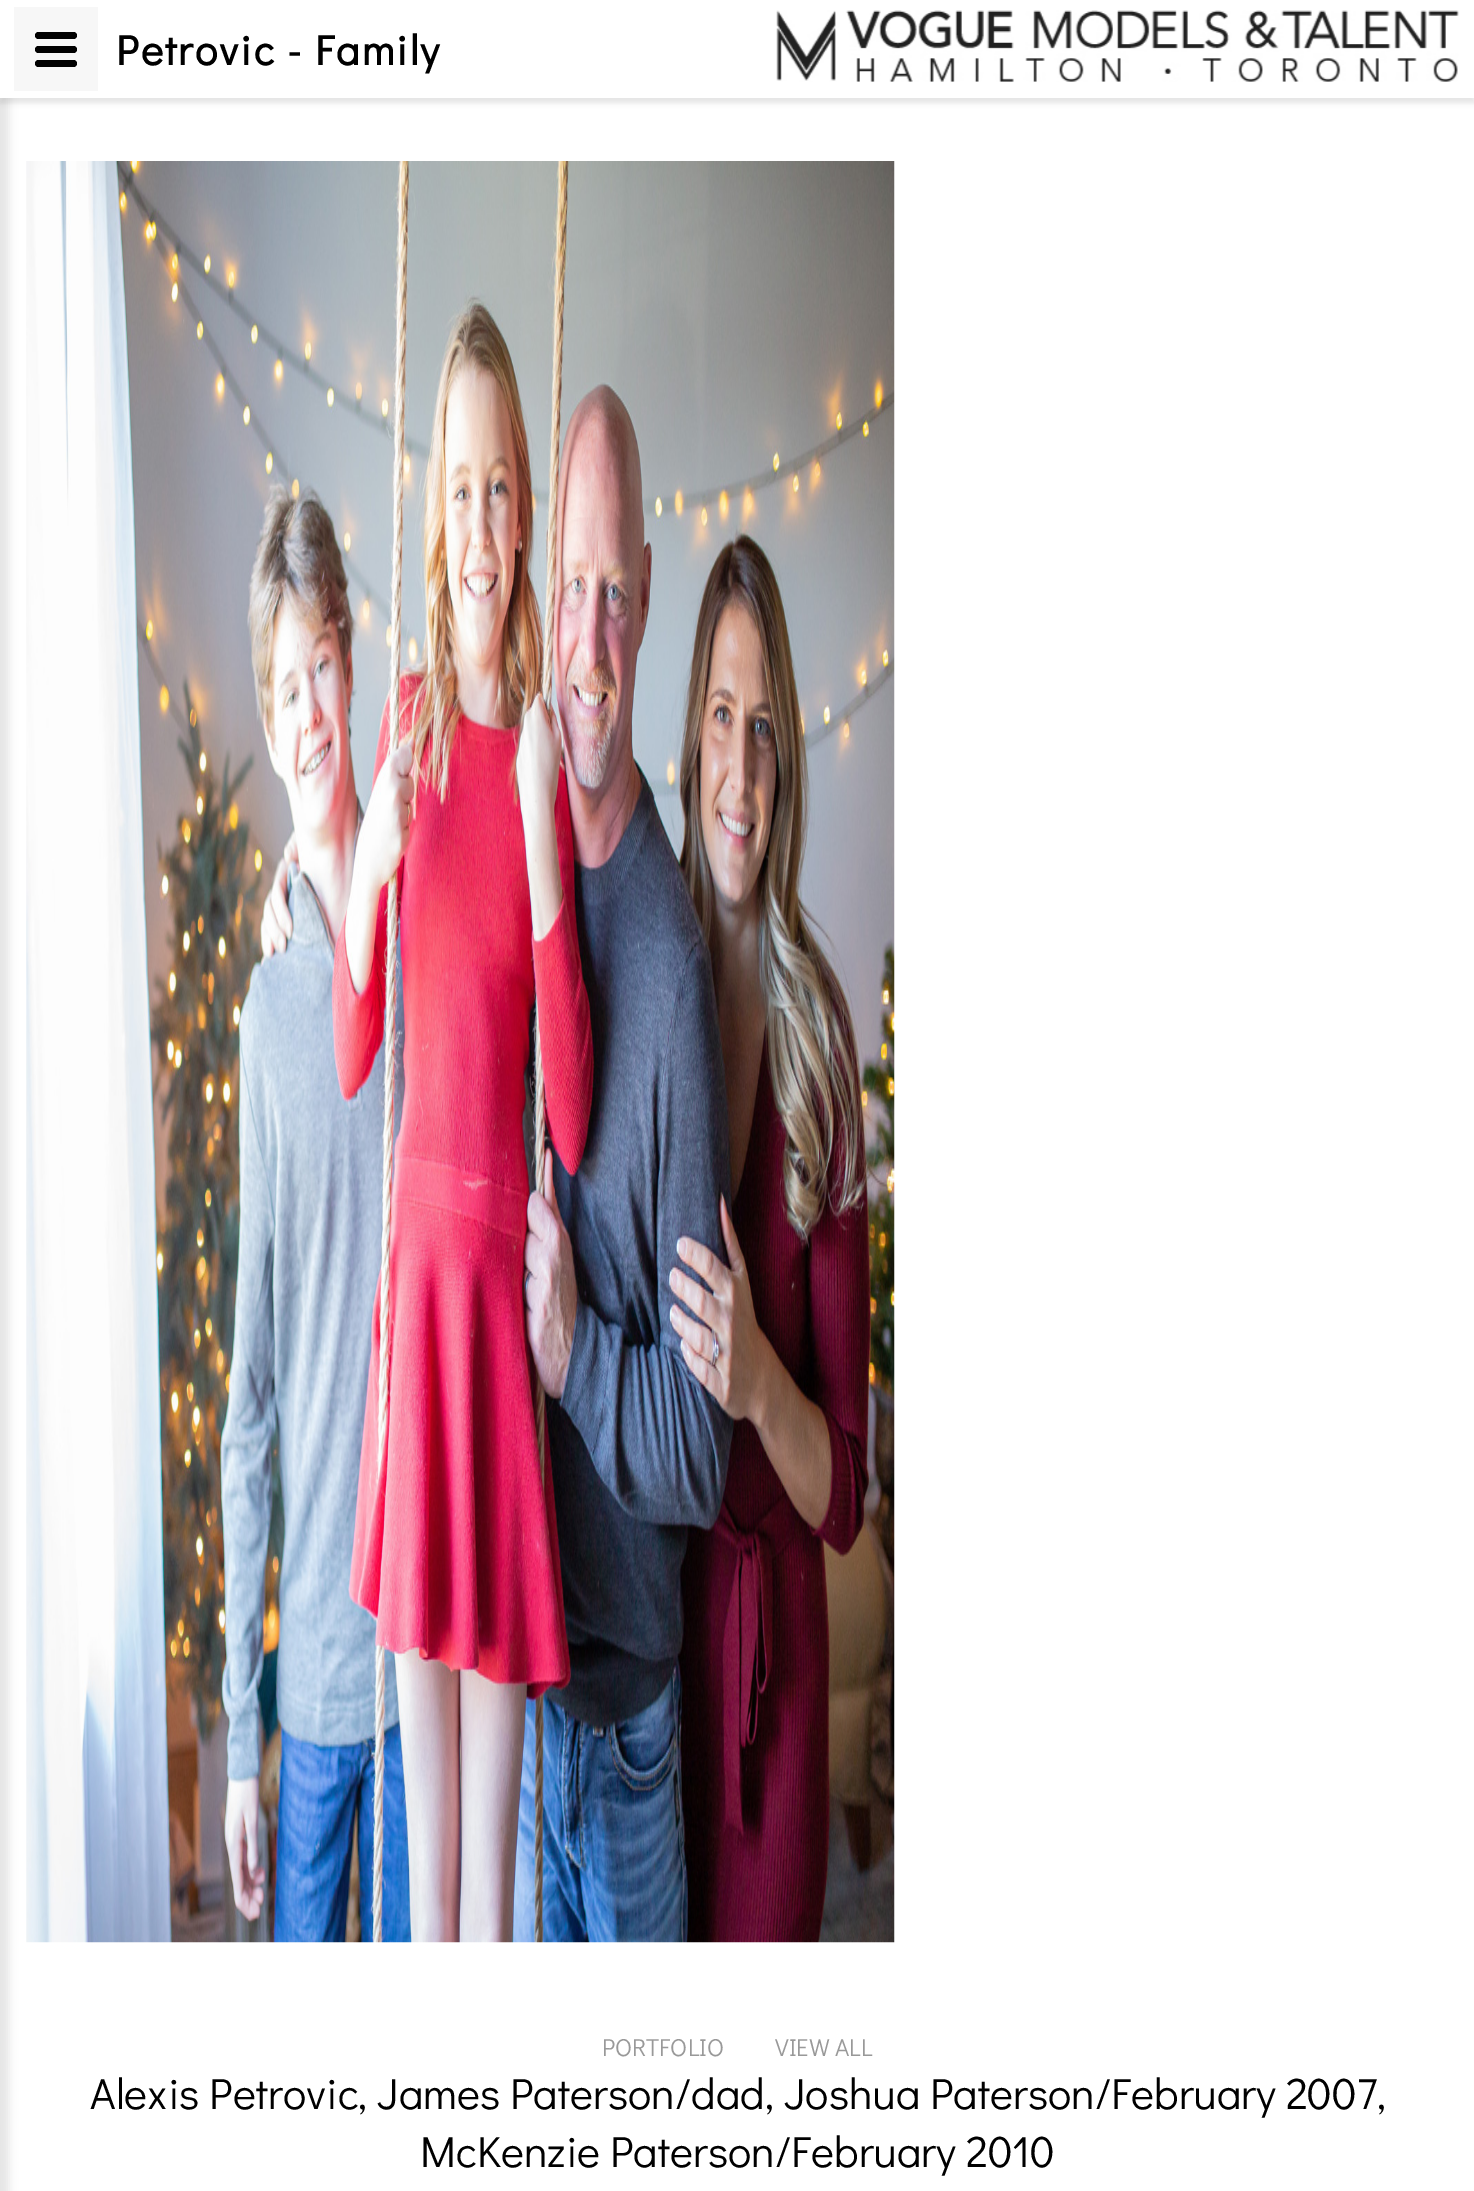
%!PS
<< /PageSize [1474 2191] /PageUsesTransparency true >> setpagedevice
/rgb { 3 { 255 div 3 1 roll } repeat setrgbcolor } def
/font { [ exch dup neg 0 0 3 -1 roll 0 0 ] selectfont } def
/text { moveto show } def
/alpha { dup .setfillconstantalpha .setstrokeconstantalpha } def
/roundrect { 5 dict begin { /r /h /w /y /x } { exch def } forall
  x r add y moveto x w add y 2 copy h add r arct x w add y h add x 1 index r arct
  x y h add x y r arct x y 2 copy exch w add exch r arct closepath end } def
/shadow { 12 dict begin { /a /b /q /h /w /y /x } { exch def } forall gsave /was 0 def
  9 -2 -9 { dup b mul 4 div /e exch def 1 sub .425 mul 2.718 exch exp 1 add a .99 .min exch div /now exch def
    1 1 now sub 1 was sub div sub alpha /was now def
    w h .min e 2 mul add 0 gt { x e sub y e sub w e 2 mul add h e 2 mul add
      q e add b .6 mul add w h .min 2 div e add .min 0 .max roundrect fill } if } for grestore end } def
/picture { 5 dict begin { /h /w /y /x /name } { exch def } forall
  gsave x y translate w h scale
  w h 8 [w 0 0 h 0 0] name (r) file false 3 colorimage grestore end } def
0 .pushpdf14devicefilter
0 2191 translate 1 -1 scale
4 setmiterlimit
255 255 255 rgb
0 0 1474 2191 rectfill
0 0 0 rgb
-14 -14 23 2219 0 4.5 0.1 shadow
0 5 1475 98 0 2.5 0.1 shadow
255 255 255 rgb
0 0 1474 98 rectfill
247 247 247 rgb
14 7 84 84 rectfill
0 0 0 rgb
35 46 42 7 3.5 roundrect fill
35 32 42 7 3.5 roundrect fill
35 60 42 7 3.5 roundrect fill
(img_01.rgb) 776 10 683 72 picture
(img_02.rgb) 26 161 869 1782 picture
/DidactGothic-Bold 42 font
116 65 moveto 2.1 0 (Petrovic - Family) ashow
/DidactGothic-Regular 24.5 font
153 153 153 rgb
(PORTFOLIO) 602 2056 text
(VIEW ALL) 775 2056 text
/DidactGothic-Regular 43.75 font
0 0 0 rgb
(Alexis Petrovic, James Paterson/dad, Joshua Paterson/February 2007,) 90 2109 text
(McKenzie Paterson/February 2010) 420 2167 text
.poppdf14devicefilter showpage
